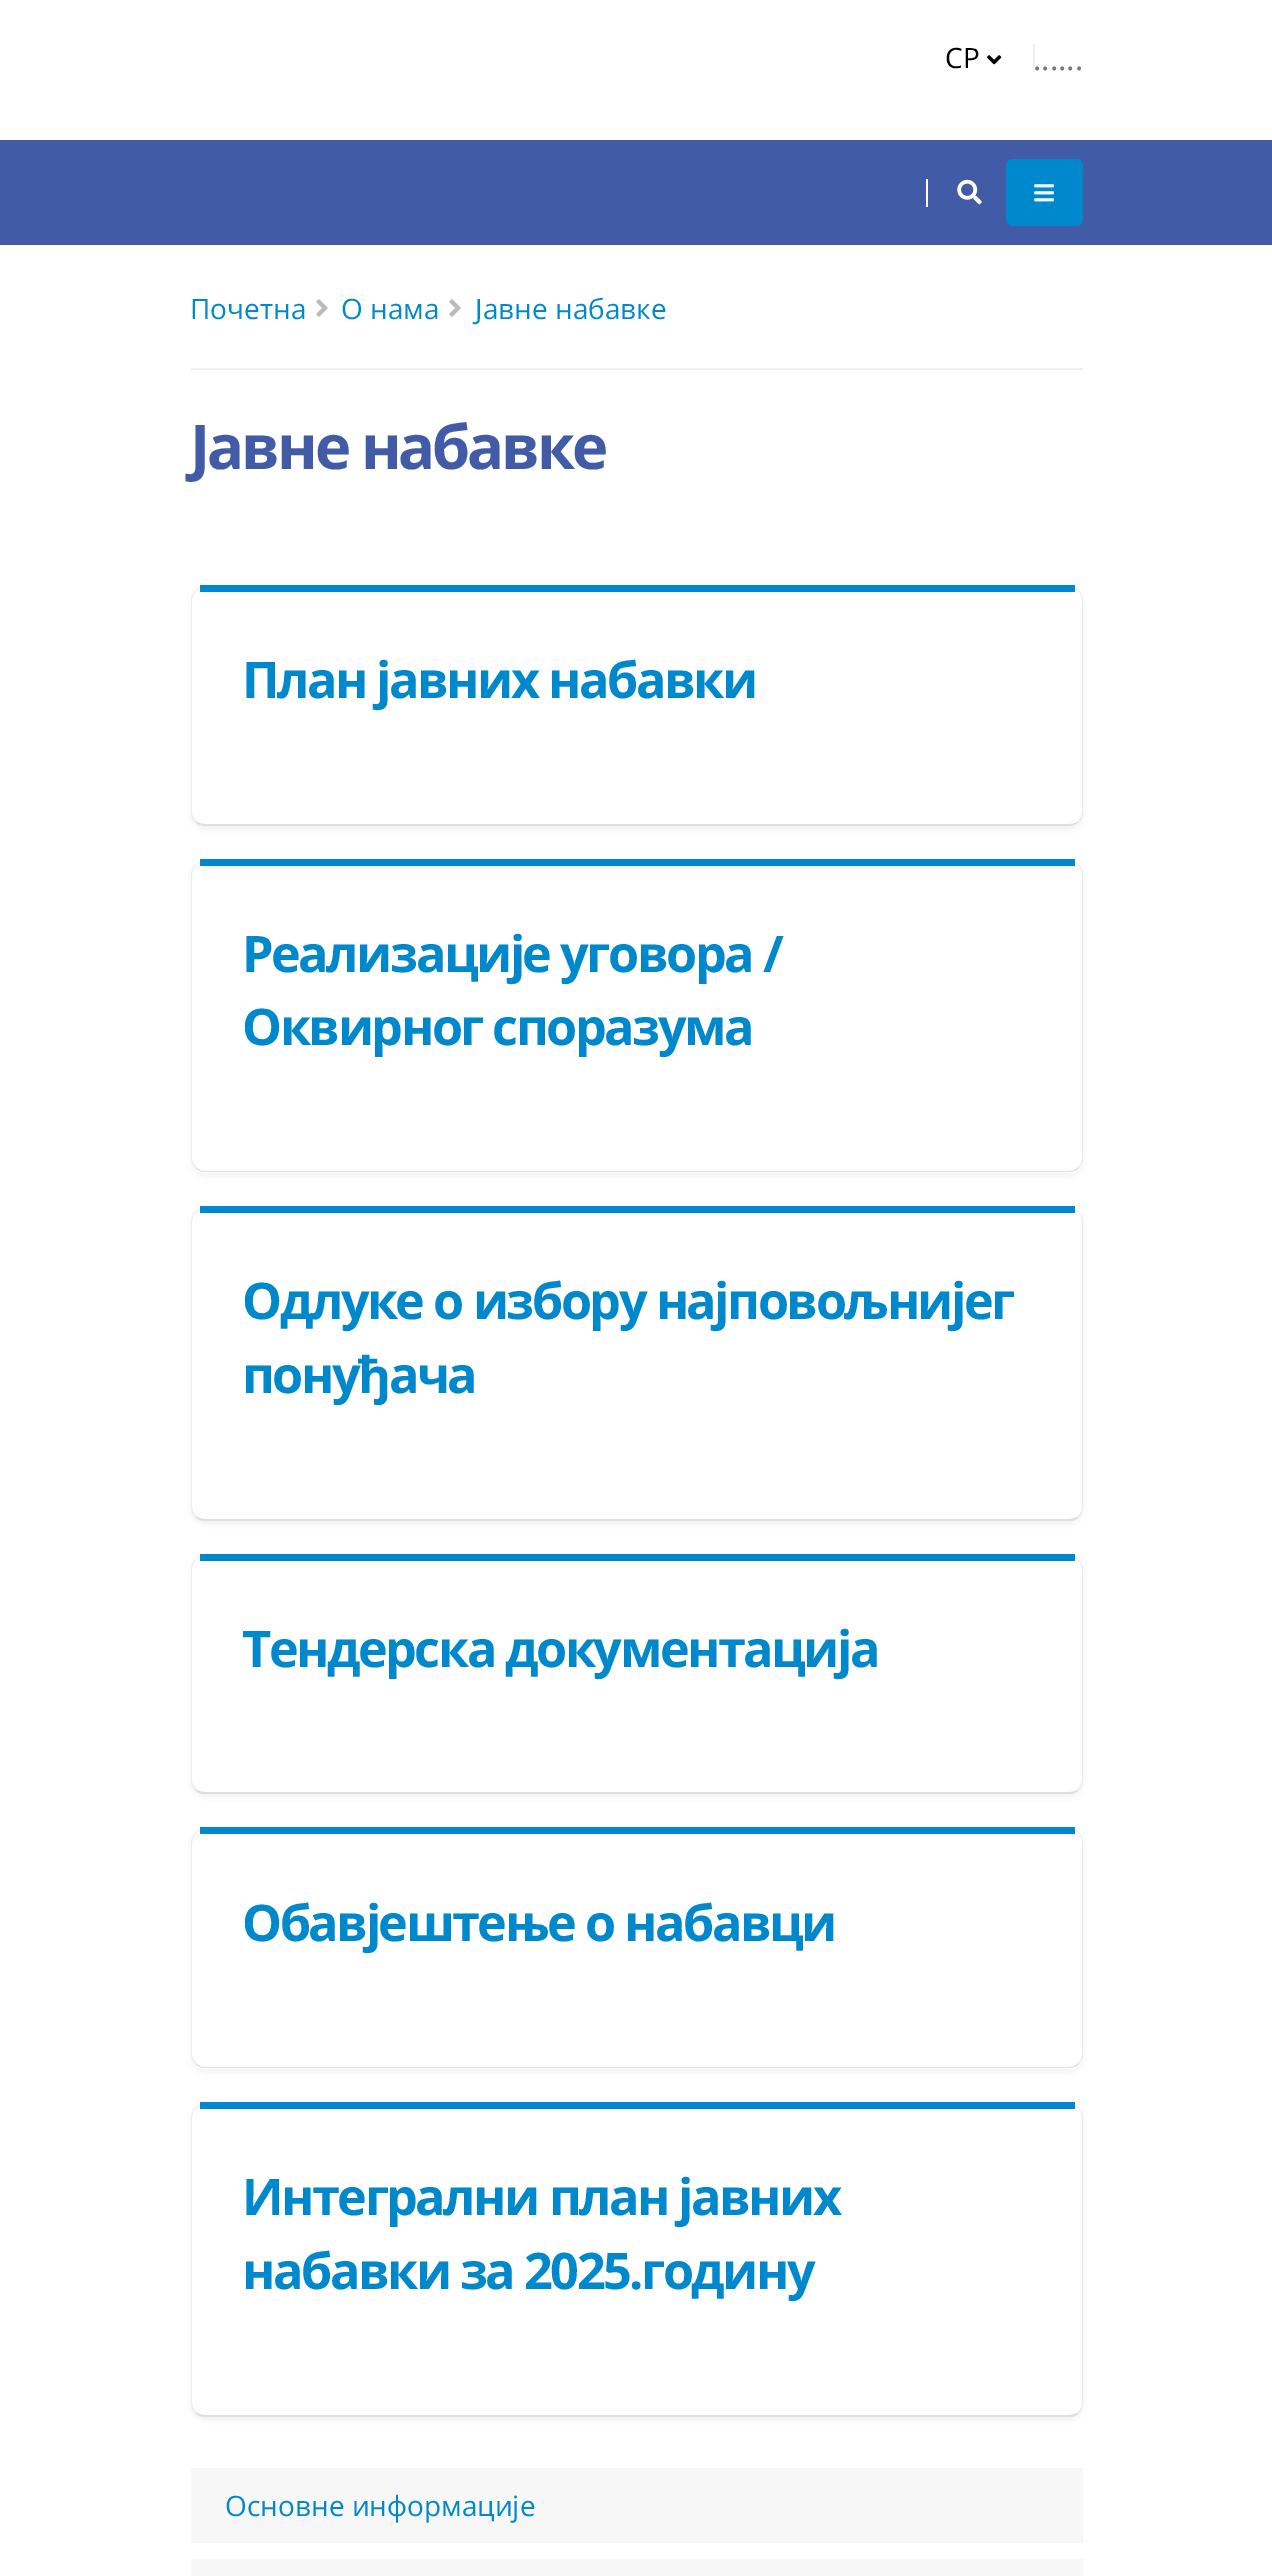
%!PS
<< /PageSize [1272 2576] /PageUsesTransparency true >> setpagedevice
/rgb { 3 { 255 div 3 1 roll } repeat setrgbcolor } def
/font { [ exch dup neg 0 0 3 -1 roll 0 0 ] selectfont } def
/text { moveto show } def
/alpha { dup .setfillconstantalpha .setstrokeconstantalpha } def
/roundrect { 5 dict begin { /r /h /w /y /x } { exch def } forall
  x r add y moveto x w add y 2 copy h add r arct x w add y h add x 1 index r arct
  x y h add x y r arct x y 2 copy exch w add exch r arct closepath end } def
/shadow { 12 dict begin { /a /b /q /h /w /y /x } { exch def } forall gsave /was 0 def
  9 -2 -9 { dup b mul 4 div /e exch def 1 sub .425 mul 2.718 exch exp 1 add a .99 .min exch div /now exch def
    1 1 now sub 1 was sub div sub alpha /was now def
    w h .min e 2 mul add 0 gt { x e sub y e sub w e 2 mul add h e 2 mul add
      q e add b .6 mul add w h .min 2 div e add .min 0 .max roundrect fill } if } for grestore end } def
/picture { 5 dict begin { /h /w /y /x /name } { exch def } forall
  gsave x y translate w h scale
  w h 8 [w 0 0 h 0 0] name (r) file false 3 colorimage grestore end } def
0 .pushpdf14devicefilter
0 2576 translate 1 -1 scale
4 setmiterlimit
255 255 255 rgb
0 0 1272 2576 rectfill
(img_01.rgb) 987 55 15 10 picture
240 240 240 rgb
1033 44 2 28 rectfill
65 91 167 rgb
0 140 1272 105 rectfill
255 255 255 rgb
926 179 2 28 rectfill
(img_02.rgb) 957 179 25 26 picture
0 136 204 rgb
1006 159 77 67 7 roundrect fill
(img_03.rgb) 1034 184 20 18 picture
(img_04.rgb) 316 299 12 18 picture
(img_04.rgb) 449 299 12 18 picture
240 240 240 rgb
191 368 892 2 rectfill
0 0 0 rgb
191 590 892 240 14 3.5 0.05 shadow
255 255 255 rgb
191 586 892 240 14 roundrect fill
236 236 236 rgb
1078 821 moveto 2 -2 4 -5 4 -9 rcurveto 0 -212 rlineto 0 -6 -5 -12 -11 -14 rcurveto 1 0 rlineto 6 2 11 8 11 14 rcurveto 0 212 rlineto 0 4 -1 7 -4 10 rcurveto closepath fill
223 223 223 rgb
205 826 moveto 864 0 rlineto 4 0 8 -2 10 -4 rcurveto -1 -1 rlineto -2 2 -6 3 -9 3 rcurveto -864 0 rlineto -3 0 -7 -1 -9 -3 rcurveto -1 1 rlineto 2 2 6 4 10 4 rcurveto closepath fill
236 236 236 rgb
203 586 moveto -6 2 -11 8 -11 14 rcurveto 0 212 rlineto 0 4 2 7 4 9 rcurveto -1 1 rlineto -3 -3 -4 -6 -4 -10 rcurveto 0 -212 rlineto 0 -6 5 -12 11 -14 rcurveto closepath fill
0 136 204 rgb
200 585 875 7 rectfill
0 0 0 rgb
191 865 892 311 14 3.5 0.05 shadow
255 255 255 rgb
191 861 892 312 14 roundrect fill
236 236 236 rgb
1083 875 moveto 0 -8 -6 -14 -14 -14 rcurveto 7 0 13 6 13 14 rcurveto 0 283 rlineto 0 4 -2 7 -4 9 rcurveto 1 1 rlineto 2 -2 4 -6 4 -10 rcurveto closepath fill
223 223 223 rgb
196 1167 moveto 2 3 6 4 9 4 rcurveto 864 0 rlineto 3 0 7 -1 9 -4 rcurveto 1 1 rlineto -3 3 -6 4 -10 4 rcurveto -864 0 rlineto -4 0 -7 -1 -10 -4 rcurveto closepath fill
236 236 236 rgb
205 861 moveto -7 0 -13 6 -13 14 rcurveto 0 283 rlineto 0 4 2 7 4 9 rcurveto -1 1 rlineto -2 -2 -4 -6 -4 -10 rcurveto 0 -283 rlineto 0 -8 6 -14 14 -14 rcurveto closepath fill
0 136 204 rgb
200 859 875 7 rectfill
0 0 0 rgb
191 1211 892 313 14 3.5 0.05 shadow
255 255 255 rgb
191 1208 892 313 14 roundrect fill
236 236 236 rgb
1079 1517 moveto 3 -3 4 -7 4 -10 rcurveto 0 -285 rlineto 0 -8 -6 -14 -14 -14 rcurveto 7 0 13 6 13 14 rcurveto 0 285 rlineto 0 3 -2 7 -4 9 rcurveto closepath fill
223 223 223 rgb
196 1516 moveto 2 2 6 3 9 3 rcurveto 864 0 rlineto 3 0 7 -1 9 -3 rcurveto 1 1 rlineto -2 2 -4 3 -7 4 rcurveto -870 0 rlineto -3 -1 -5 -2 -7 -4 rcurveto closepath fill
236 236 236 rgb
205 1208 moveto -7 0 -13 6 -13 14 rcurveto 0 285 rlineto 0 3 2 7 4 9 rcurveto -1 1 rlineto -3 -3 -4 -7 -4 -10 rcurveto 0 -285 rlineto 0 -8 6 -14 14 -14 rcurveto closepath fill
0 136 204 rgb
200 1206 875 7 rectfill
0 0 0 rgb
191 1559 892 238 14 3.5 0.05 shadow
255 255 255 rgb
191 1556 892 238 14 roundrect fill
236 236 236 rgb
1079 1790 moveto 3 -3 4 -7 4 -10 rcurveto 0 -210 rlineto 0 -8 -6 -14 -14 -14 rcurveto 7 0 13 6 13 14 rcurveto 0 210 rlineto 0 4 -2 6 -4 9 rcurveto closepath fill
223 223 223 rgb
196 1789 moveto 2 2 6 3 9 3 rcurveto 864 0 rlineto 3 0 7 -1 9 -3 rcurveto 1 1 rlineto -2 2 -4 3 -7 4 rcurveto -870 0 rlineto -3 -1 -5 -2 -7 -4 rcurveto closepath fill
236 236 236 rgb
205 1556 moveto -7 0 -13 6 -13 14 rcurveto 0 210 rlineto 0 4 2 6 4 9 rcurveto -1 1 rlineto -3 -3 -4 -7 -4 -10 rcurveto 0 -210 rlineto 0 -8 6 -14 14 -14 rcurveto closepath fill
0 136 204 rgb
200 1554 875 7 rectfill
0 0 0 rgb
191 1832 892 240 14 3.5 0.05 shadow
255 255 255 rgb
191 1829 892 240 14 roundrect fill
236 236 236 rgb
1079 2064 moveto 2 -2 4 -6 4 -10 rcurveto 0 -211 rlineto 0 -8 -6 -14 -14 -14 rcurveto 7 0 13 6 13 14 rcurveto 0 211 rlineto 0 4 -2 7 -4 9 rcurveto closepath fill
223 223 223 rgb
196 2063 moveto 2 3 6 4 9 4 rcurveto 864 0 rlineto 3 0 7 -1 9 -4 rcurveto 1 1 rlineto -3 3 -6 4 -10 4 rcurveto -864 0 rlineto -4 0 -7 -1 -10 -4 rcurveto closepath fill
236 236 236 rgb
205 1829 moveto -7 0 -13 6 -13 14 rcurveto 0 211 rlineto 0 4 2 7 4 9 rcurveto -1 1 rlineto -2 -2 -4 -6 -4 -10 rcurveto 0 -211 rlineto 0 -8 6 -14 14 -14 rcurveto closepath fill
0 136 204 rgb
200 1827 875 7 rectfill
0 0 0 rgb
191 2107 892 313 14 3.5 0.05 shadow
255 255 255 rgb
191 2104 892 313 14 roundrect fill
236 236 236 rgb
1079 2413 moveto 3 -3 4 -7 4 -10 rcurveto 0 -285 rlineto 0 -8 -6 -14 -14 -14 rcurveto 7 0 13 6 13 14 rcurveto 0 285 rlineto 0 3 -2 7 -4 9 rcurveto closepath fill
223 223 223 rgb
196 2412 moveto 2 2 6 3 9 3 rcurveto 864 0 rlineto 3 0 7 -1 9 -3 rcurveto 1 1 rlineto -2 2 -4 3 -7 4 rcurveto -870 0 rlineto -3 -1 -5 -2 -7 -4 rcurveto closepath fill
236 236 236 rgb
205 2104 moveto -7 0 -13 6 -13 14 rcurveto 0 285 rlineto 0 3 2 7 4 9 rcurveto -1 1 rlineto -3 -3 -4 -7 -4 -10 rcurveto 0 -285 rlineto 0 -8 6 -14 14 -14 rcurveto closepath fill
0 136 204 rgb
200 2102 875 7 rectfill
247 247 247 rgb
191 2468 892 75 rectfill
191 2559 892 17 rectfill
/OpenSans-Regular 28 font
0 0 0 rgb
(СР) 945 68 text
/OpenSans-Regular 32 font
119 119 119 rgb
(...) 1033 70 text
(...) 1058 70 text
/OpenSans-Regular 28 font
0 136 204 rgb
(Почетна) 190 319 text
(О нама) 341 319 text
(Јавне набавке) 475 319 text
/OpenSans-Bold 61.5 font
65 91 167 rgb
190 469 moveto -3.1 0 (Јавне набавке) ashow
/OpenSans-Bold 50.4 font
0 136 204 rgb
242 698 moveto -2.5 0 (План јавних набавки) ashow
242 972 moveto -2.5 0 (Реализације уговора /) ashow
242 1045 moveto -2.5 0 (Оквирног споразума) ashow
242 1319 moveto -2.5 0 (Одлуке о избору најповољнијег) ashow
242 1393 moveto -2.5 0 (понуђача) ashow
242 1667 moveto -2.5 0 (Тендерска документација) ashow
242 1941 moveto -2.5 0 (Обавјештење о набавци) ashow
242 2215 moveto -2.5 0 (Интегрални план јавних) ashow
242 2289 moveto -2.5 0 (набавки за 2025.годину) ashow
/OpenSans-Regular 28 font
(Основне информације) 225 2516 text
.poppdf14devicefilter showpage
